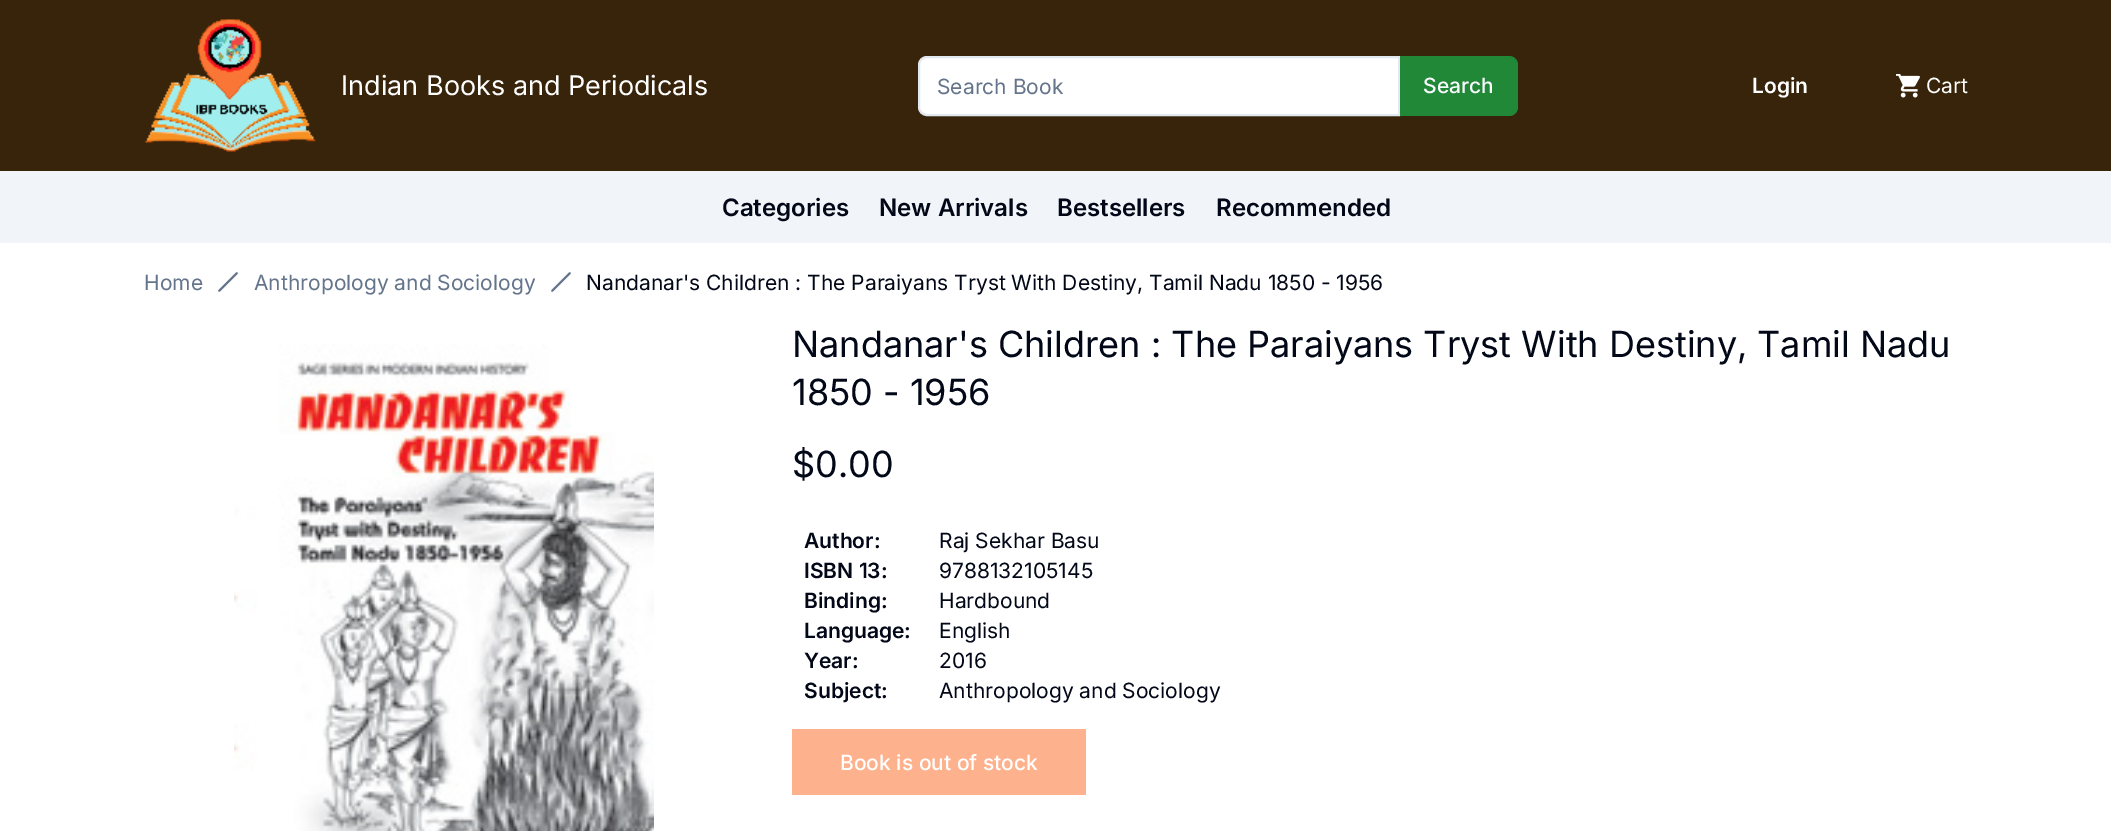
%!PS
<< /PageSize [2111 831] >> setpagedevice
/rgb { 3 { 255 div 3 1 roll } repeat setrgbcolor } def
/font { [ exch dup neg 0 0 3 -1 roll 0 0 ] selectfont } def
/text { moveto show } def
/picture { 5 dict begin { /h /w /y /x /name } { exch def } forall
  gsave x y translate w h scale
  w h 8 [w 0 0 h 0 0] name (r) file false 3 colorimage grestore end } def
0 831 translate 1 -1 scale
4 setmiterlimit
255 255 255 rgb
0 0 2111 831 rectfill
55 36 10 rgb
0 0 2111 171 rectfill
(img_01.rgb) 145 19 171 133 picture
255 255 255 rgb
927 57 moveto 472 0 rlineto 0 58 rlineto -472 0 rlineto -4.5 0 -8 -3.5 -8 -8 rcurveto 0 -42 rlineto 0 -4.5 3.5 -8 8 -8 rcurveto closepath gsave fill grestore
226 232 240 rgb
2 setlinewidth
stroke
33 136 56 rgb
1400 56 moveto 109 0 rlineto 5 0 9 4 9 9 rcurveto 0 42 rlineto 0 5 -4 9 -9 9 rcurveto -109 0 rlineto closepath fill
(img_02.rgb) 1896 74 24 24 picture
241 245 249 rgb
0 171 2111 72 rectfill
100 116 139 rgb
1.8 setlinewidth
1 setlinecap
1 setlinejoin
237 273 moveto -18 18 rlineto stroke
570 273 moveto -18 18 rlineto stroke
(img_03.rgb) 234 344 420 487 picture
253 178 141 rgb
792 729 294 66 rectfill
/Inter-Regular 27 font
255 255 255 rgb
(Indian Books and Periodicals) 341 95 text
/Inter-Regular 21 font
100 116 139 rgb
(Search Book) 937 94 text
/Inter-Medium 21 font
248 250 252 rgb
(Search) 1423 93 text
/Inter-SemiBold 21 font
255 255 255 rgb
(Login) 1752 93 text
/Inter-Regular 21 font
(Cart) 1926 93 text
/Inter-SemiBold 24 font
2 8 23 rgb
(Categories) 722 216 text
(New Arrivals) 879 216 text
(Bestsellers) 1057 216 text
(Recommended) 1216 216 text
/Inter-Regular 21 font
100 116 139 rgb
(Home) 144 290 text
(Anthropology and Sociology) 254 290 text
2 8 23 rgb
(Nandanar's Children : The Paraiyans Tryst With Destiny, Tamil Nadu 1850 - 1956) 586 290 text
/Inter-Regular 36 font
(Nandanar's Children : The Paraiyans Tryst With Destiny, Tamil Nadu) 792 357 text
(1850 - 1956) 792 405 text
($0.00) 792 477 text
/Inter-SemiBold 21 font
(Author:) 804 548 text
/Inter-Regular 21 font
(Raj Sekhar Basu) 939 548 text
/Inter-SemiBold 21 font
(ISBN 13:) 804 578 text
/Inter-Regular 21 font
(9788132105145) 939 578 text
/Inter-SemiBold 21 font
(Binding:) 804 608 text
/Inter-Regular 21 font
(Hardbound) 939 608 text
/Inter-SemiBold 21 font
(Language:) 804 638 text
/Inter-Regular 21 font
(English) 939 638 text
/Inter-SemiBold 21 font
(Year:) 804 668 text
/Inter-Regular 21 font
(2016) 939 668 text
/Inter-SemiBold 21 font
(Subject:) 804 698 text
/Inter-Regular 21 font
(Anthropology and Sociology) 939 698 text
/Inter-Medium 21 font
255 255 255 rgb
(Book is out of stock) 840 770 text
showpage
